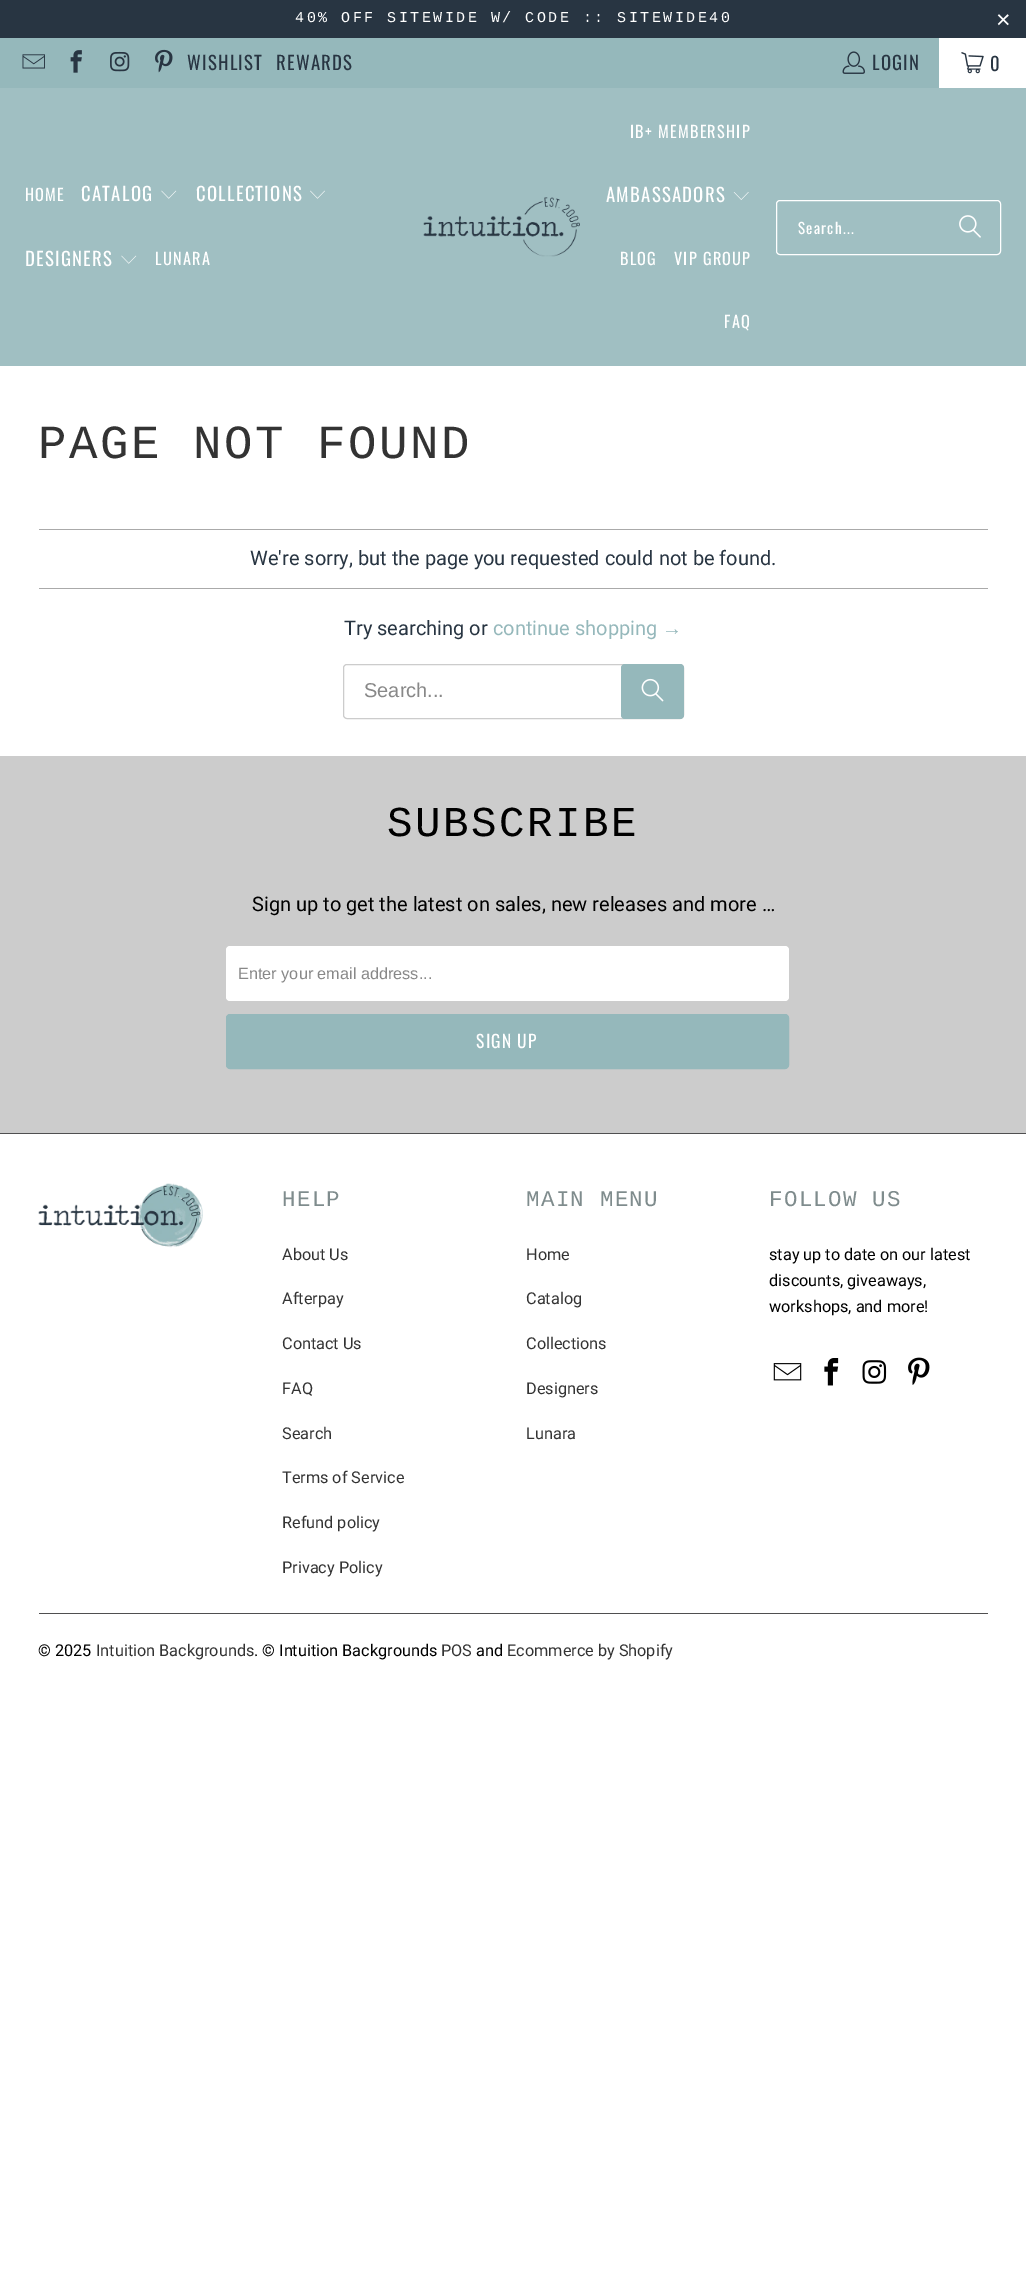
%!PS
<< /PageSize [1026 2275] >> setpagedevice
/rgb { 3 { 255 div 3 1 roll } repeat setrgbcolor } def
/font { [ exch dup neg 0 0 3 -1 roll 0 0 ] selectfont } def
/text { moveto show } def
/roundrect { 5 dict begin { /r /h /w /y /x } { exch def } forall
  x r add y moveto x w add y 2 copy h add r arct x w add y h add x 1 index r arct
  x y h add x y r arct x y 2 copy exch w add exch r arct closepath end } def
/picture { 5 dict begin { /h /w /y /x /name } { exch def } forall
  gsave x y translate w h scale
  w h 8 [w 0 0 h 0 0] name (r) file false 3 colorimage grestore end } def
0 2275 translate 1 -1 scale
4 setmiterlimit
255 255 255 rgb
0 0 1026 2275 rectfill
40 53 66 rgb
0 0 1026 38 rectfill
149 184 187 rgb
0 38 939 50 rectfill
(img_01.rgb) 22 54 23 15 picture
(img_02.rgb) 70 50 12 23 picture
(img_03.rgb) 110 51 20 21 picture
(img_04.rgb) 155 49 18 24 picture
(img_05.rgb) 842 51 23 23 picture
(img_06.rgb) 961 52 23 22 picture
160 191 194 rgb
0 88 1026 278 rectfill
(img_07.rgb) 161 190 16 9 picture
(img_08.rgb) 310 190 15 9 picture
(img_07.rgb) 121 255 16 9 picture
(img_09.rgb) 423 197 157 60 picture
(img_10.rgb) 733 192 16 8 picture
255 255 255 rgb
776.5 200.5 224 54 3.5 roundrect stroke
(img_11.rgb) 959 215 22 23 picture
170 170 170 rgb
39 529 949 1 rectfill
39 588 949 1 rectfill
204 204 204 rgb
343.5 664.5 340 54 3.5 roundrect stroke
149 184 187 rgb
621 664 63 55 4 roundrect fill
(img_12.rgb) 641 678 23 24 picture
204 204 204 rgb
0 756 1026 377 rectfill
255 255 255 rgb
226 946 563 55 4 roundrect fill
149 184 187 rgb
226.5 1014.5 562 54 3.5 roundrect gsave fill grestore
stroke
79 79 80 rgb
0 1133 1026 1 rectfill
(img_13.rgb) 38 1183 165 65 picture
(img_14.rgb) 773 1363 29 18 picture
(img_15.rgb) 824 1358 15 28 picture
(img_16.rgb) 862 1360 25 24 picture
(img_17.rgb) 908 1357 22 28 picture
39 1613 949 1 rectfill
/LiberationMono-Regular 15 font
255 255 255 rgb
295 22 moveto 2.5 0 (40% OFF SITEWIDE W/ CODE :: SITEWIDE40) ashow
/LiberationSans-Regular 25 font
996 28 moveto 2.5 0 (×) ashow
/Oswald-Regular 18.75 font
40 53 66 rgb
187 70 moveto 1.25 0 (WISHLIST) ashow
276 70 moveto 1.25 0 (REWARDS) ashow
872 70 moveto 1.25 0 (LOGIN) ashow
990 71 moveto 1.25 0 (0) ashow
/Oswald-Regular 16.25 font
255 255 255 rgb
25 201 moveto 1.25 0 (HOME) ashow
/Oswald-Regular 18.75 font
81 201 moveto 1.25 0 (CATALOG) ashow
196 201 moveto 1.25 0 (COLLECTIONS) ashow
25 266 moveto 1.25 0 (DESIGNERS) ashow
/Oswald-Regular 16.25 font
155 265 moveto 1.25 0 (LUNARA) ashow
630 138 moveto 1.25 0 (IB+ MEMBERSHIP) ashow
/Oswald-Regular 18.75 font
606 202 moveto 1.25 0 (AMBASSADORS) ashow
/Oswald-Regular 16.25 font
620 265 moveto 1.25 0 (BLOG) ashow
674 265 moveto 1.25 0 (VIP GROUP) ashow
724 328 moveto 1.25 0 (FAQ) ashow
/Oswald-Regular 15 font
798 234 moveto 1.25 0 (Search...) ashow
/LiberationMono-Regular 47.5 font
51 51 51 rgb
38 458 moveto 2.5 0 (PAGE NOT FOUND) ashow
/Roboto-Regular 20 font
40 53 66 rgb
(We're sorry, but the page you requested could not be found.) 250 565 text
(Try searching or) 344 635 text
149 184 187 rgb
(continue shopping) 493 635 text
/LiberationSans-Regular 20 font
(→) 662 635 text
136 136 136 rgb
(Search...) 364 697 text
/LiberationMono-Regular 42.5 font
0 0 0 rgb
387 836 moveto 2.5 0 (SUBSCRIBE) ashow
/Roboto-Regular 20 font
(Sign up to get the latest on sales, new releases and more …) 252 911 text
/LiberationSans-Regular 16.25 font
136 136 136 rgb
(Enter your email address...) 238 979 text
/Oswald-Regular 17.5 font
255 255 255 rgb
476 1048 moveto 1.25 0 (SIGN UP) ashow
/LiberationMono-Regular 22.5 font
127 140 141 rgb
282 1206 moveto 1.25 0 (HELP) ashow
/Roboto-Regular 16.25 font
51 51 51 rgb
(About Us) 282 1260 text
(Afterpay) 282 1304 text
(Contact Us) 282 1349 text
(FAQ) 282 1394 text
(Search) 282 1439 text
(Terms of Service) 282 1483 text
(Refund policy) 282 1528 text
(Privacy Policy) 282 1573 text
/LiberationMono-Regular 22.5 font
127 140 141 rgb
526 1206 moveto 1.25 0 (MAIN MENU) ashow
/Roboto-Regular 16.25 font
51 51 51 rgb
(Home) 526 1260 text
(Catalog) 526 1304 text
(Collections) 526 1349 text
(Designers) 526 1394 text
(Lunara) 526 1439 text
/LiberationMono-Regular 22.5 font
127 140 141 rgb
769 1206 moveto 1.25 0 (FOLLOW US) ashow
/Roboto-Regular 16.25 font
0 0 0 rgb
(stay up to date on our latest) 769 1260 text
(discounts, giveaways,) 769 1286 text
(workshops, and more!) 769 1312 text
(© 2025) 38 1656 text
51 51 51 rgb
(Intuition Backgrounds) 96 1656 text
0 0 0 rgb
(. © Intuition Backgrounds) 254 1656 text
51 51 51 rgb
(POS) 441 1656 text
0 0 0 rgb
(and) 476 1656 text
51 51 51 rgb
(Ecommerce by Shopify) 507 1656 text
showpage
